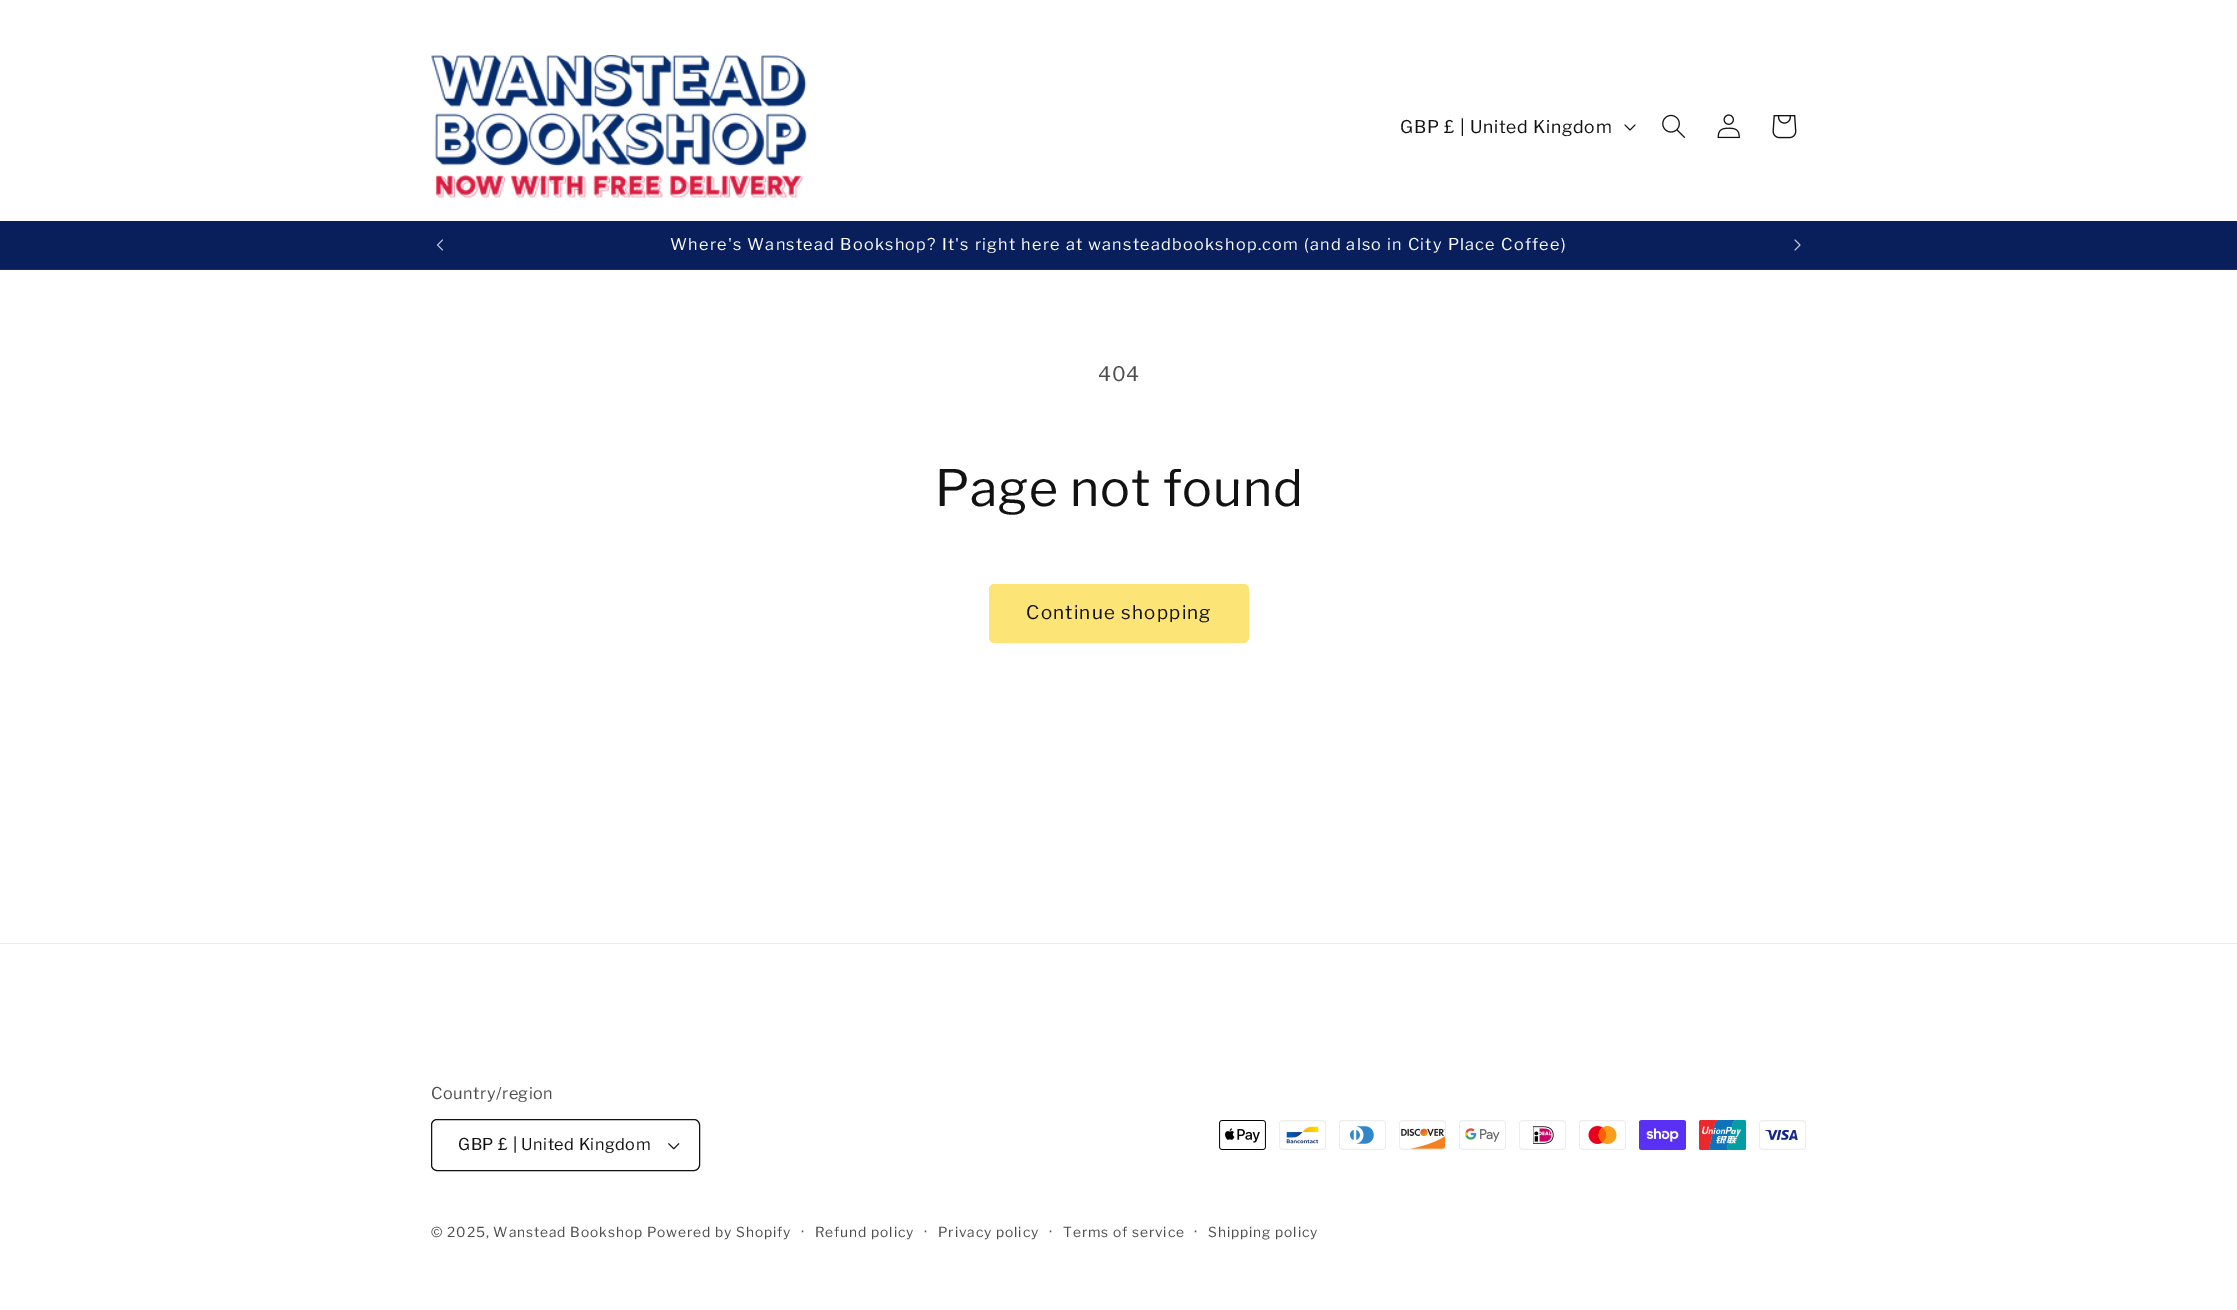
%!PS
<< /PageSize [2237 1310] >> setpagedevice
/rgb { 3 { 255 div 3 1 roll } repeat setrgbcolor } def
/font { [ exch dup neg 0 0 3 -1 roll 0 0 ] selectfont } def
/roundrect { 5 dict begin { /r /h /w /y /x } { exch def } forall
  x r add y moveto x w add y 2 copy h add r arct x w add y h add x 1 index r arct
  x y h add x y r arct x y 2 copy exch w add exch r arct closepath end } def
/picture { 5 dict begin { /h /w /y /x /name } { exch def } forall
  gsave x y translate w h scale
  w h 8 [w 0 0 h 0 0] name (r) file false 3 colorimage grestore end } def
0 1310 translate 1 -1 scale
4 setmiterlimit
255 255 255 rgb
0 0 2237 1310 rectfill
(img_01.rgb) 431 55 376 143 picture
(img_02.rgb) 1624 124 12 7 picture
(img_03.rgb) 1662 114 23 24 picture
(img_04.rgb) 1717 114 23 25 picture
(img_05.rgb) 1772 115 25 24 picture
8 31 92 rgb
0 221 2237 48 rectfill
28 49 105 rgb
0 269 2237 1 rectfill
(img_06.rgb) 437 239 6 12 picture
(img_07.rgb) 1794 239 7 12 picture
252 228 119 rgb
989 584 260 59 6 roundrect fill
989.5 584.5 259 58 5.5 roundrect stroke
236 236 236 rgb
0 943 2237 1 rectfill
(img_08.rgb) 668 1143 12 7 picture
18 18 18 rgb
431.5 1119.5 268 51 5.5 roundrect stroke
(img_09.rgb) 1219 1120 47 30 picture
(img_10.rgb) 1279 1120 47 30 picture
(img_11.rgb) 1339 1120 47 30 picture
(img_12.rgb) 1399 1120 47 30 picture
(img_13.rgb) 1459 1120 47 30 picture
(img_14.rgb) 1519 1120 47 30 picture
(img_15.rgb) 1579 1120 47 30 picture
(img_16.rgb) 1639 1120 47 30 picture
(img_17.rgb) 1699 1120 47 30 picture
(img_18.rgb) 1759 1120 47 30 picture
/LibreFranklin-Regular 17.5 font
1400 133 moveto 0.75 0 (GBP £ | United Kingdom) ashow
/LibreFranklin-Regular 16.25 font
255 255 255 rgb
670 250 moveto 1.25 0 (Where's Wanstead Bookshop? It's right here at wansteadbookshop.com \(and also in City Place Coffee\)) ashow
/LibreFranklin-Regular 20 font
77 77 77 rgb
1098 381 moveto 0.75 0 (404) ashow
/LibreFranklin-Regular 50 font
18 18 18 rgb
935 506 moveto 0.75 0 (Page not found) ashow
/LibreFranklin-Regular 18.75 font
1026 619 moveto 1.25 0 (Continue shopping) ashow
/LibreFranklin-Regular 16.25 font
77 77 77 rgb
431 1099 moveto 0.5 0 (Country/region) ashow
18 18 18 rgb
458 1150 moveto 0.5 0 (GBP £ | United Kingdom) ashow
/LibreFranklin-Regular 13.75 font
77 77 77 rgb
431 1237 moveto 0.9 0 (© 2025, Wanstead Bookshop Powered by Shopify) ashow
/LibreFranklin-Regular 15 font
801 1237 moveto 0.9 0 (·) ashow
/LibreFranklin-Regular 13.75 font
815 1237 moveto 0.9 0 (Refund policy) ashow
/LibreFranklin-Regular 15 font
924 1237 moveto 0.9 0 (·) ashow
/LibreFranklin-Regular 13.75 font
938 1237 moveto 0.9 0 (Privacy policy) ashow
/LibreFranklin-Regular 15 font
1049 1237 moveto 0.9 0 (·) ashow
/LibreFranklin-Regular 13.75 font
1063 1237 moveto 0.9 0 (Terms of service) ashow
/LibreFranklin-Regular 15 font
1194 1237 moveto 0.9 0 (·) ashow
/LibreFranklin-Regular 13.75 font
1208 1237 moveto 0.9 0 (Shipping policy) ashow
showpage
